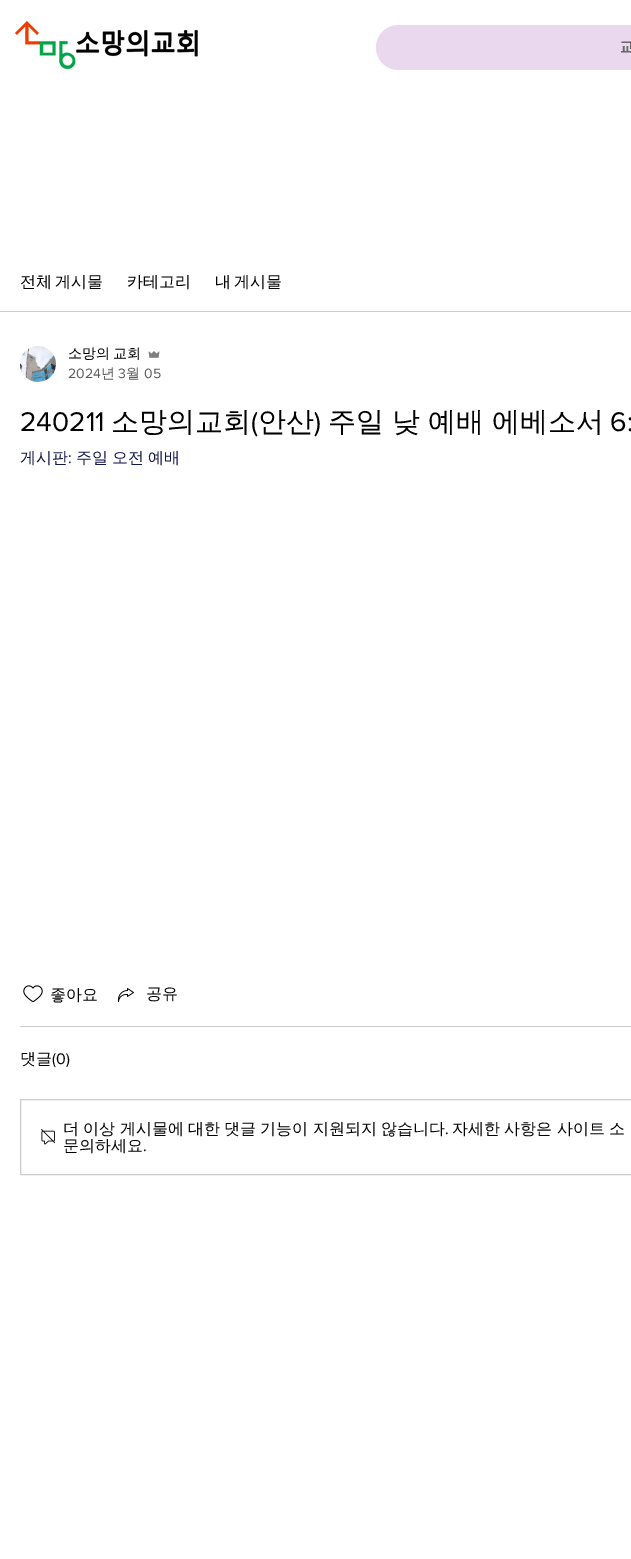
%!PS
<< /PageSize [631 1559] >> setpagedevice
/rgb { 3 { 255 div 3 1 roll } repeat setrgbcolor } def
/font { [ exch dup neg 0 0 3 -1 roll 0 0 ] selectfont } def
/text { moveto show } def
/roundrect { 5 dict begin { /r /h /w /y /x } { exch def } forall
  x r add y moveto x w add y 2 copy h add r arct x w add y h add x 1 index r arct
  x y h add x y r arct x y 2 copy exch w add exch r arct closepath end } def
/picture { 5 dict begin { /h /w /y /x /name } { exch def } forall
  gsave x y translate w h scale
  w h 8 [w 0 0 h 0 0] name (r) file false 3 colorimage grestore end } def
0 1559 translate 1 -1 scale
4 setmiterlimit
255 255 255 rgb
0 0 631 1559 rectfill
(img_01.rgb) 15 21 183 49 picture
234 216 238 rgb
376 25 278 45 22.5 roundrect fill
204 204 204 rgb
0 311 631 1 rectfill
(img_02.rgb) 20 346 36 36 picture
(img_03.rgb) 148 351 12 7 picture
(img_04.rgb) 23 985 20 18 picture
(img_05.rgb) 118 988 16 14 picture
20 1026 611 1 rectfill
20.5 1099.5 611 75 rectstroke
(img_06.rgb) 41 1129 14 16 picture
/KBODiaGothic-Medium 15 font
105 105 105 rgb
(교) 620 52 text
/WenQuanYiZenHei-Medium 16 font
0 0 0 rgb
20 287 moveto -2 0 32 (전체 게시물) widthshow
(카테고리) 127 287 text
215 287 moveto -2 0 32 (내 게시물) widthshow
/WenQuanYiZenHei-Medium 14 font
68 358 moveto -1 0 32 (소망의 교회) widthshow
/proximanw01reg-Regular 14 font
92 92 92 rgb
(2024) 68 378 text
/WenQuanYiZenHei-Medium 14 font
(년) 101 378 text
/proximanw01reg-Regular 14 font
(3) 118 378 text
/WenQuanYiZenHei-Medium 14 font
(월) 126 378 text
/proximanw01reg-Regular 14 font
(05) 144 378 text
/proximanw01reg-Regular 28 font
0 0 0 rgb
(240211) 20 431 text
/WenQuanYiZenHei-Medium 28 font
(소망의교회) 111 431 text
/proximanw01reg-Regular 28 font
(\() 251 431 text
/WenQuanYiZenHei-Medium 28 font
(안산) 258 431 text
/proximanw01reg-Regular 28 font
(\)) 314 431 text
/WenQuanYiZenHei-Medium 28 font
328 431 moveto -0.5 0 32 (주일 낮 예배 에베소서) widthshow
/proximanw01reg-Regular 28 font
(6:) 610 431 text
/WenQuanYiZenHei-Medium 16 font
19 22 74 rgb
(게시판) 20 463 text
/proximanw01reg-Regular 16 font
(:) 68 463 text
/WenQuanYiZenHei-Medium 16 font
76 463 moveto -1 0 32 (주일 오전 예배) widthshow
0 0 0 rgb
(좋아요) 50 1000 text
(공유) 146 999 text
(댓글) 20 1064 text
/proximanw01reg-Regular 16 font
(\(0\)) 52 1064 text
/WenQuanYiZenHei-Medium 16 font
63 1134 moveto -0.5 0 32 (더 이상 게시물에 대한 댓글 기능이 지원되지 않습니다) widthshow
/proximanw01reg-Regular 16 font
(.) 445 1134 text
/WenQuanYiZenHei-Medium 16 font
452 1134 moveto -0.5 0 32 (자세한 사항은 사이트 소) widthshow
(문의하세요) 63 1151 text
/proximanw01reg-Regular 16 font
(.) 143 1151 text
showpage
